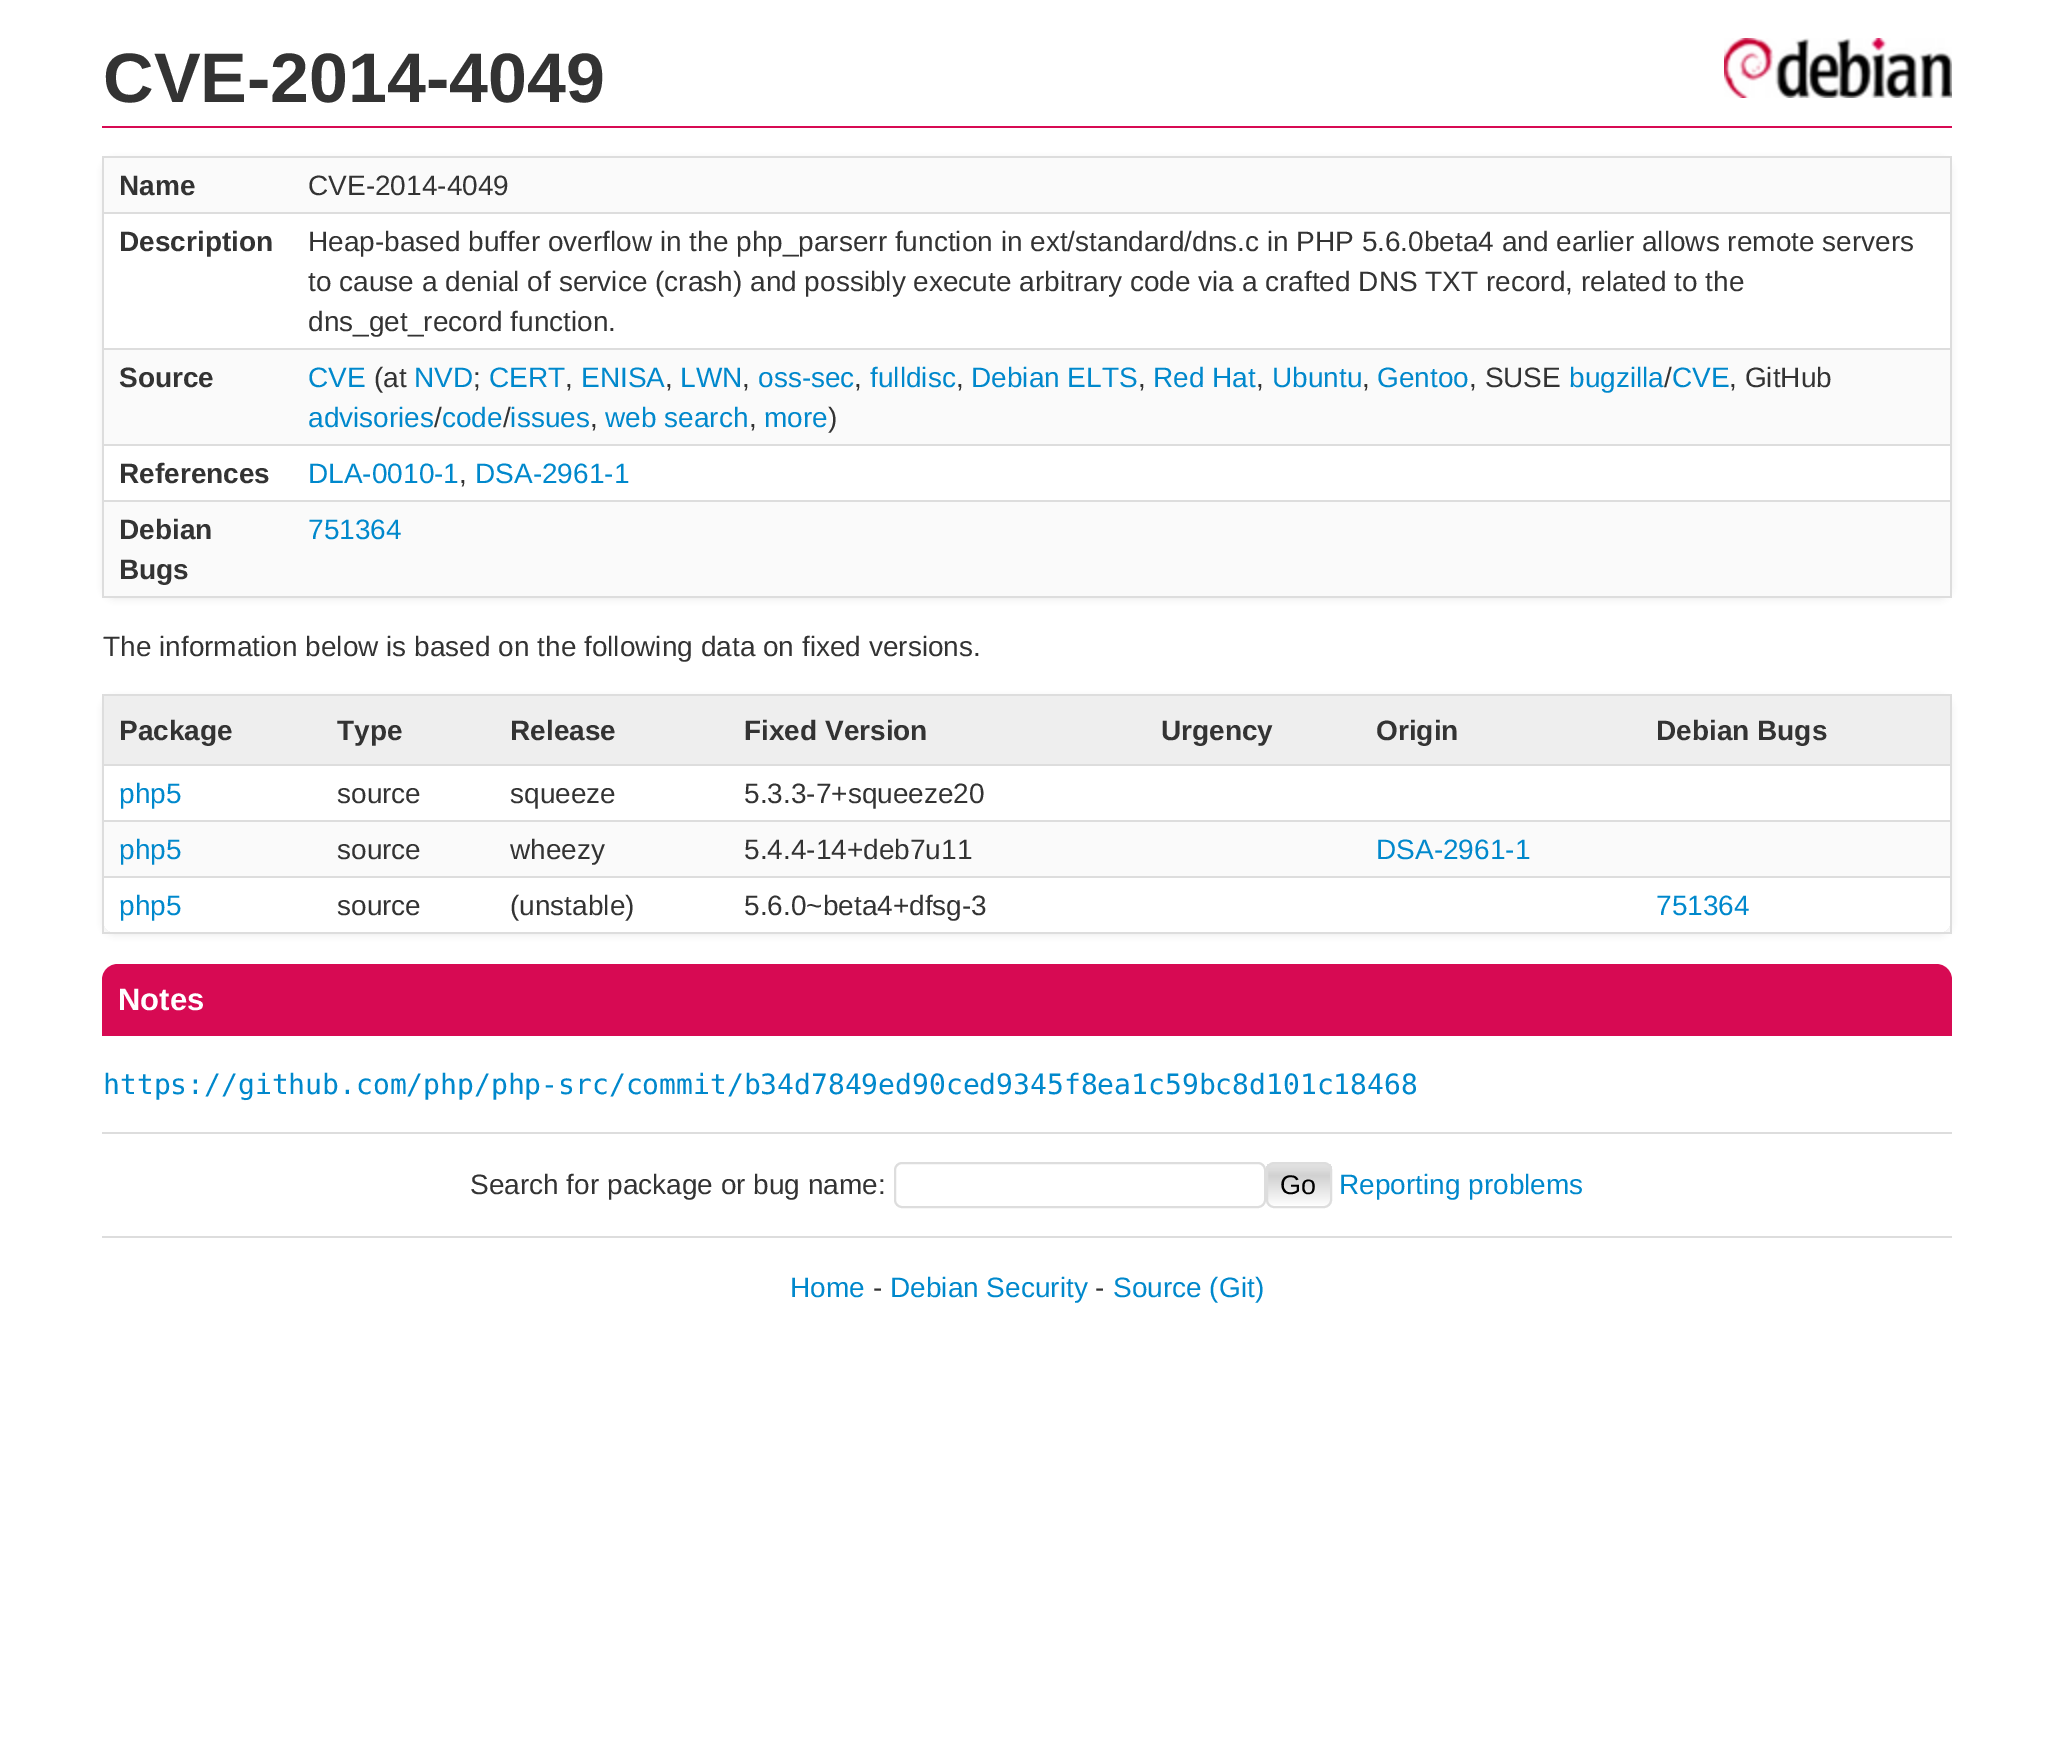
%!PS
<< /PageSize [2053 1749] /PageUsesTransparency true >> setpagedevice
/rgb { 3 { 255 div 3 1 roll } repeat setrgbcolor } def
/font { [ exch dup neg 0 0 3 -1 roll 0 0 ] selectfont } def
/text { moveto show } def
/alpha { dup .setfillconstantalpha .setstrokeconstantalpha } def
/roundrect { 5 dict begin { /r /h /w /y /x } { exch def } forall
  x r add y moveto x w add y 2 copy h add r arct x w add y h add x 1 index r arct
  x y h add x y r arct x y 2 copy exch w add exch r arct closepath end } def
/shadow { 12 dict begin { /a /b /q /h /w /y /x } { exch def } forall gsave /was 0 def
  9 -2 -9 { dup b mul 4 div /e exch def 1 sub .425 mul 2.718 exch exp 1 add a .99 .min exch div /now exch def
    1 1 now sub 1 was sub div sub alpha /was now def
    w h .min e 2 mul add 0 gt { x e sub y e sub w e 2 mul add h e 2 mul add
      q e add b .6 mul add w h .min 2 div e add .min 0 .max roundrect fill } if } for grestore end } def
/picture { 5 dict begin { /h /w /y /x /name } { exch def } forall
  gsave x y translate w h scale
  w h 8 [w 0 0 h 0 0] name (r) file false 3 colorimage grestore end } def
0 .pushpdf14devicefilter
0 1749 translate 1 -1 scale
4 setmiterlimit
255 255 255 rgb
0 0 2053 1749 rectfill
(img_01.rgb) 1724 38 228 60 picture
215 10 83 rgb
102 126 1850 2 rectfill
gsave
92 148 moveto 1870 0 rlineto 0 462 rlineto -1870 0 rlineto closepath 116 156 moveto 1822 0 rlineto 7.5 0 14 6.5 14 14 rcurveto 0 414 rlineto 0 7.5 -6.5 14 -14 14 rcurveto -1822 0 rlineto -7.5 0 -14 -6.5 -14 -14 rcurveto 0 -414 rlineto 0 -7.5 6.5 -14 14 -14 rcurveto closepath eoclip newpath
238 238 238 rgb
102 158 1850 442 14 3 1 shadow
grestore
221 221 221 rgb
102 156 1850 2 rectfill
1950 156 2 442 rectfill
102 596 1850 2 rectfill
102 156 2 442 rectfill
250 250 250 rgb
104 158 1846 54 rectfill
221 221 221 rgb
102 212 1850 2 rectfill
102 348 1850 2 rectfill
250 250 250 rgb
104 350 1846 94 rectfill
221 221 221 rgb
102 444 1850 2 rectfill
102 500 1850 2 rectfill
250 250 250 rgb
104 502 1846 94 rectfill
gsave
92 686 moveto 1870 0 rlineto 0 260 rlineto -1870 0 rlineto closepath 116 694 moveto 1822 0 rlineto 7.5 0 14 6.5 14 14 rcurveto 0 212 rlineto 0 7.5 -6.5 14 -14 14 rcurveto -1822 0 rlineto -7.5 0 -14 -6.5 -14 -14 rcurveto 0 -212 rlineto 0 -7.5 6.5 -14 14 -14 rcurveto closepath eoclip newpath
238 238 238 rgb
102 696 1850 240 14 3 1 shadow
grestore
221 221 221 rgb
102 694 1850 2 rectfill
1950 694 2 240 rectfill
102 932 1850 2 rectfill
102 694 2 240 rectfill
238 238 238 rgb
104 696 1846 68 rectfill
221 221 221 rgb
102 764 1850 2 rectfill
102 820 1850 2 rectfill
250 250 250 rgb
104 822 1846 54 rectfill
221 221 221 rgb
102 876 1850 2 rectfill
215 10 83 rgb
118 964 moveto 1818 0 rlineto 9 0 16 7 16 16 rcurveto 0 56 rlineto -1850 0 rlineto 0 -56 rlineto 0 -9 7 -16 16 -16 rcurveto closepath fill
221 221 221 rgb
102 1132 1850 2 rectfill
102 1236 1850 2 rectfill
2 setlinewidth
895 1163 370 44 7 roundrect stroke
gsave
1266 1162 66 46 8 roundrect clip newpath
gsave 1266 1164 moveto 66 0 rlineto 0 42 rlineto -66 0 rlineto closepath clip newpath
<< /ShadingType 2 /ColorSpace /DeviceRGB /Coords [1299 1164 1299 1206] /Extend [true true] /Function << /FunctionType 3 /Domain [0 1] /Functions [<< /FunctionType 2 /Domain [0 1] /C0 [0.886 0.886 0.886] /C1 [0.859 0.859 0.859] /N 1 >> << /FunctionType 2 /Domain [0 1] /C0 [0.859 0.859 0.859] /C1 [0.82 0.82 0.82] /N 1 >> << /FunctionType 2 /Domain [0 1] /C0 [0.82 0.82 0.82] /C1 [0.996 0.996 0.996] /N 1 >>] /Bounds [0.15 0.28] /Encode [0 1 0 1 0 1] >> >> shfill grestore
grestore
1267 1163 64 44 7 roundrect stroke
/LiberationSans-Bold 70 font
51 51 51 rgb
(CVE-2014-4049) 103 102 text
/LiberationSans-Bold 28 font
(Name) 119 195 text
/LiberationSans-Regular 28 font
(CVE-2014-4049) 308 195 text
/LiberationSans-Bold 28 font
(Description) 119 251 text
/LiberationSans-Regular 28 font
(Heap-based buffer overflow in the php_parserr function in ext/standard/dns.c in PHP 5.6.0beta4 and earlier allows remote servers) 308 251 text
(to cause a denial of service \(crash\) and possibly execute arbitrary code via a crafted DNS TXT record, related to the) 308 291 text
(dns_get_record function.) 308 331 text
/LiberationSans-Bold 28 font
(Source) 119 387 text
/LiberationSans-Regular 28 font
(\(at) 374 387 text
0 136 204 rgb
(fulldisc) 870 387 text
(Debian ELTS) 971 387 text
(Red Hat) 1153 387 text
(Ubuntu) 1272 387 text
(bugzilla CVE) 1569 387 text
(CVE) 308 387 text
(NVD) 414 387 text
51 51 51 rgb
(;) 473 387 text
0 136 204 rgb
(CERT) 489 387 text
51 51 51 rgb
(,) 565 387 text
0 136 204 rgb
(ENISA) 581 387 text
51 51 51 rgb
(,) 665 387 text
0 136 204 rgb
(LWN) 680 387 text
51 51 51 rgb
(,) 742 387 text
0 136 204 rgb
(oss-sec) 758 387 text
51 51 51 rgb
(,) 854 387 text
(,) 956 387 text
(,) 1138 387 text
(,) 1256 387 text
(,) 1362 387 text
0 136 204 rgb
(Gentoo) 1377 387 text
51 51 51 rgb
(, SUSE) 1469 387 text
(/) 1664 387 text
(, GitHub) 1729 387 text
0 136 204 rgb
(advisories code issues) 308 427 text
51 51 51 rgb
(/) 434 427 text
(/) 503 427 text
(,) 590 427 text
0 136 204 rgb
(web search) 605 427 text
51 51 51 rgb
(,) 749 427 text
0 136 204 rgb
(more) 764 427 text
51 51 51 rgb
(\)) 828 427 text
/LiberationSans-Bold 28 font
(References) 119 483 text
/LiberationSans-Regular 28 font
0 136 204 rgb
(DLA-0010-1) 308 483 text
51 51 51 rgb
(,) 459 483 text
0 136 204 rgb
(DSA-2961-1) 475 483 text
/LiberationSans-Bold 28 font
51 51 51 rgb
(Debian) 119 539 text
(Bugs) 119 579 text
/LiberationSans-Regular 28 font
0 136 204 rgb
(751364) 308 539 text
51 51 51 rgb
(The information below is based on the following data on fixed versions.) 103 656 text
/LiberationSans-Bold 28 font
(Package) 119 740 text
(Type) 337 740 text
(Release) 510 740 text
(Fixed Version) 744 740 text
(Urgency) 1161 740 text
(Origin) 1376 740 text
(Debian Bugs) 1656 740 text
/LiberationSans-Regular 28 font
0 136 204 rgb
(php5) 119 803 text
51 51 51 rgb
(source) 337 803 text
(squeeze) 510 803 text
(5.3.3-7+squeeze20) 744 803 text
0 136 204 rgb
(php5) 119 859 text
51 51 51 rgb
(source) 337 859 text
(wheezy) 510 859 text
(5.4.4-14+deb7u11) 744 859 text
0 136 204 rgb
(DSA-2961-1) 1376 859 text
(php5) 119 915 text
51 51 51 rgb
(source) 337 915 text
(\(unstable\)) 510 915 text
(5.6.0~beta4+dfsg-3) 744 915 text
0 136 204 rgb
(751364) 1656 915 text
/LiberationSans-Bold 31 font
255 255 255 rgb
(Notes) 118 1010 text
/DejaVuSansMono-Regular 28 font
0 136 204 rgb
(https://github.com/php/php-src/commit/b34d7849ed90ced9345f8ea1c59bc8d101c18468) 103 1094 text
/LiberationSans-Regular 28 font
51 51 51 rgb
(Search for package or bug name:) 470 1194 text
/LiberationSans-Regular 27 font
0 0 0 rgb
(Go) 1280 1194 text
/LiberationSans-Regular 28 font
0 136 204 rgb
(Reporting problems) 1339 1194 text
(Home) 790 1297 text
51 51 51 rgb
(-) 873 1297 text
0 136 204 rgb
(Debian Security) 890 1297 text
51 51 51 rgb
(-) 1095 1297 text
0 136 204 rgb
(Source \(Git\)) 1113 1297 text
.poppdf14devicefilter showpage
